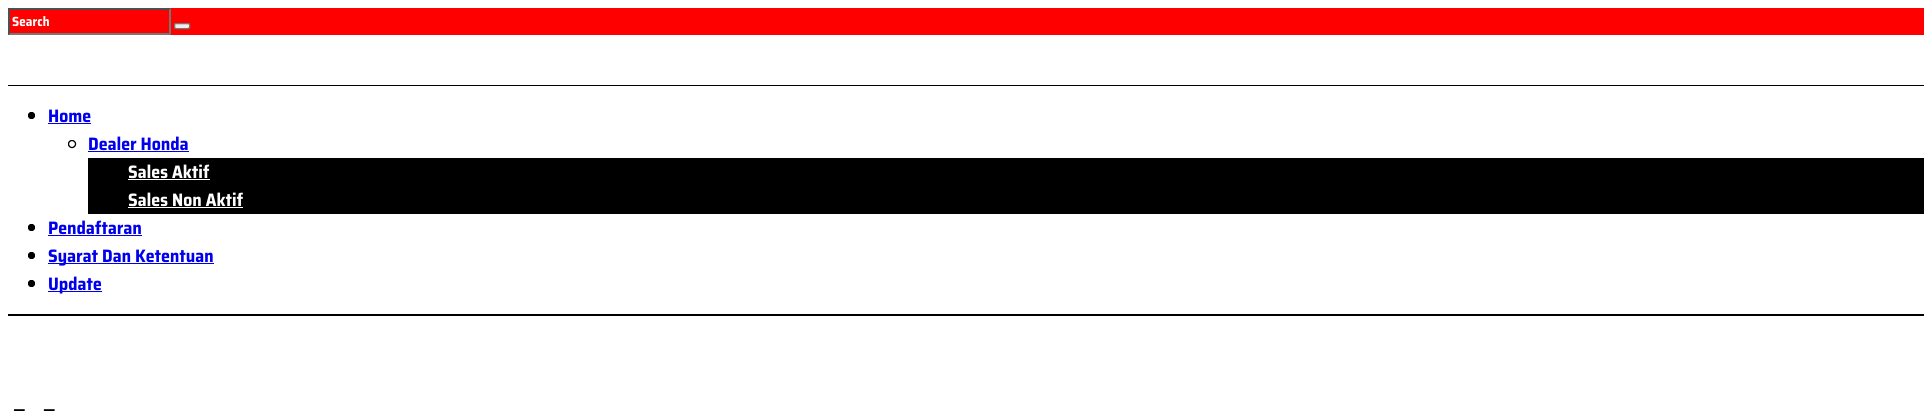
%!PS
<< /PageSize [1932 411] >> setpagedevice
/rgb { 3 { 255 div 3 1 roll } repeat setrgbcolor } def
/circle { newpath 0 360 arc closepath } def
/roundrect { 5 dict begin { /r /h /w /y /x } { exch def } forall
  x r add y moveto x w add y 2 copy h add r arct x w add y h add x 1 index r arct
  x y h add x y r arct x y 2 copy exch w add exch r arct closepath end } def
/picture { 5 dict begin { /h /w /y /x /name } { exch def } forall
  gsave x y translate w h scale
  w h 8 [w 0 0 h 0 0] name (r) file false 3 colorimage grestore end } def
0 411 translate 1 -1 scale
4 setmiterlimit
255 255 255 rgb
0 0 1932 411 rectfill
255 0 0 rgb
8 8 1916 27 rectfill
79 79 79 rgb
8 8 moveto 163 0 rlineto -2 2 rlineto -159 0 rlineto closepath fill
118 118 118 rgb
171 8 moveto 0 27 rlineto -2 -2 rlineto 0 -23 rlineto closepath fill
171 35 moveto -163 0 rlineto 2 -2 rlineto 159 0 rlineto closepath fill
79 79 79 rgb
8 35 moveto 0 -27 rlineto 2 2 rlineto 0 23 rlineto closepath fill
(img_01.rgb) 12 16 37 11 picture
239 239 239 rgb
174.5 23.5 15 5 1.5 roundrect gsave fill grestore
118 118 118 rgb
stroke
0 0 0 rgb
8 85 1916 1 rectfill
8 314 1916 2 rectfill
31.5 115.5 3.5 circle fill
(img_02.rgb) 49 109 42 14 picture
0 0 238 rgb
48 123 43 1 rectfill
0 0 0 rgb
72 144 3.5 circle stroke
(img_03.rgb) 89 136 99 15 picture
0 0 238 rgb
88 151 101 1 rectfill
0 0 0 rgb
88 158 1836 56 rectfill
(img_04.rgb) 128 164 82 15 picture
255 255 255 rgb
128 179 82 1 rectfill
(img_05.rgb) 128 192 115 15 picture
128 207 115 1 rectfill
0 0 0 rgb
31.5 227.5 3.5 circle fill
(img_06.rgb) 49 220 92 15 picture
0 0 238 rgb
48 235 94 1 rectfill
0 0 0 rgb
31.5 255.5 3.5 circle fill
0 0 238 rgb
48 263 166 1 rectfill
(img_07.rgb) 48 249 165 17 picture
0 0 0 rgb
31.5 283.5 3.5 circle fill
0 0 238 rgb
48 291 54 1 rectfill
(img_08.rgb) 49 276 53 18 picture
(img_09.rgb) 13 409 42 2 picture
showpage
